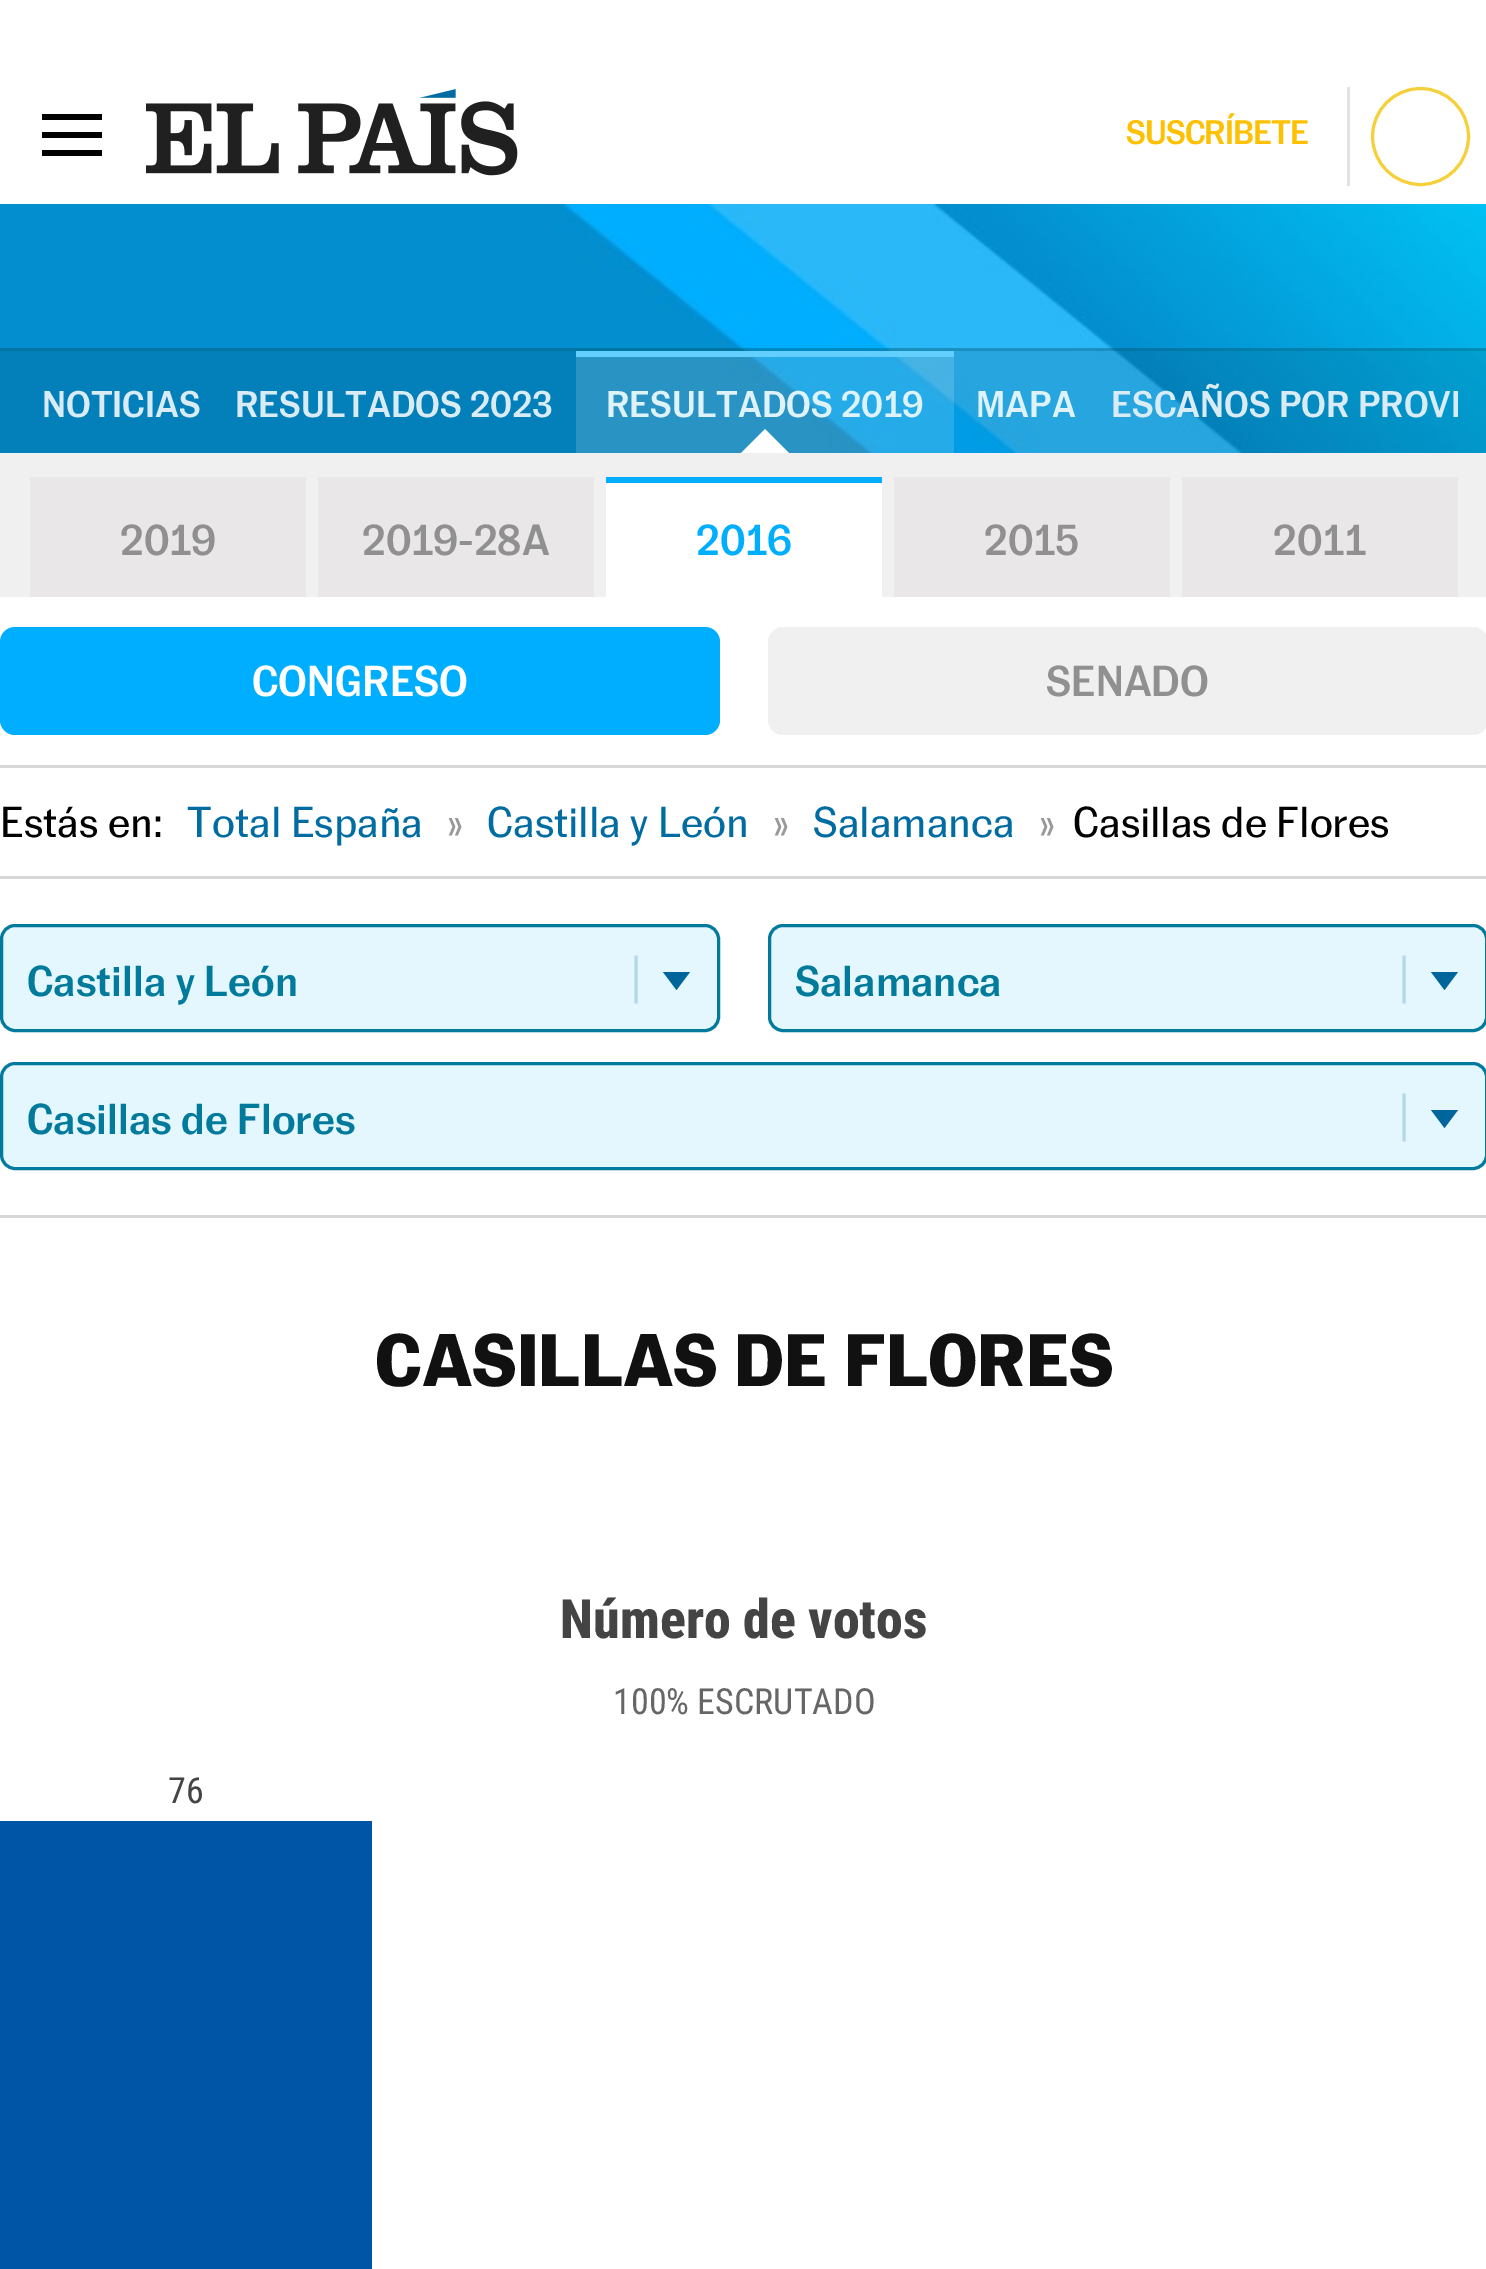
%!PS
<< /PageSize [1486 2269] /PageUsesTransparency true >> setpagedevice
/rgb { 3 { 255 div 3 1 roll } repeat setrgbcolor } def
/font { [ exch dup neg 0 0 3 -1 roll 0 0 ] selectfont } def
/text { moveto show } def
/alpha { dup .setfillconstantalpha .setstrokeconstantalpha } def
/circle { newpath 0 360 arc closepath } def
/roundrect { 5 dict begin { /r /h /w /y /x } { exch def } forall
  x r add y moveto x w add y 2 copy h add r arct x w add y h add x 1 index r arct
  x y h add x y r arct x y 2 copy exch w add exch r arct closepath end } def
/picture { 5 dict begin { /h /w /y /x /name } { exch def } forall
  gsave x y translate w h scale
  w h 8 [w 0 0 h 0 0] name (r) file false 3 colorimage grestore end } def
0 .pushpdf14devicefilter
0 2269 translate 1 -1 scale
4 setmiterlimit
255 255 255 rgb
0 0 1486 2269 rectfill
0 0 0 rgb
42 114 60 6 rectfill
42 132 60 6 rectfill
42 150 60 6 rectfill
(img_01.rgb) 146 89 372 87 picture
226 226 226 rgb
1347 87 3 99 rectfill
245 208 58 rgb
3 setlinewidth
1420.5 136.5 48 circle stroke
(img_02.rgb) 0 204 1486 249 picture
0.1 alpha
0 0 0 rgb
0 348 1486 105 rectfill
0.3 alpha
0 92 117 rgb
0 348 1486 3 rectfill
0.15 alpha
255 255 255 rgb
576 357 378 96 rectfill
1 alpha
98 207 255 rgb
576 351 378 6 rectfill
255 255 255 rgb
789 453 moveto -48 0 rlineto 24 -24 rlineto closepath fill
240 240 240 rgb
0 453 1486 144 rectfill
233 231 231 rgb
30 477 276 120 rectfill
318 477 276 120 rectfill
255 255 255 rgb
606 483 276 114 rectfill
0 174 255 rgb
606 477 276 6 rectfill
233 231 231 rgb
894 477 276 120 rectfill
1182 477 276 120 rectfill
0 174 255 rgb
0 627 720 108 15 roundrect fill
240 240 240 rgb
768 627 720 108 15 roundrect fill
216 216 216 rgb
0 765 1486 3 rectfill
0 876 1486 3 rectfill
0 1215 1486 3 rectfill
228 247 255 rgb
0 924 720 108 15 roundrect fill
178 215 231 rgb
2 setlinecap
636 957 moveto 0 45 rlineto stroke
0 101 155 rgb
676.5 990 moveto 13.5 -18 rlineto -27 0 rlineto closepath eofill
1 122 156 rgb
0 setlinecap
1.5 925.5 717 105 13.5 roundrect stroke
228 247 255 rgb
768 924 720 108 15 roundrect fill
178 215 231 rgb
2 setlinecap
1404 957 moveto 0 45 rlineto stroke
0 101 155 rgb
1444.5 990 moveto 13.5 -18 rlineto -27 0 rlineto closepath eofill
1 122 156 rgb
0 setlinecap
769.5 925.5 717 105 13.5 roundrect stroke
228 247 255 rgb
0 1062 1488 108 15 roundrect fill
178 215 231 rgb
2 setlinecap
1404 1095 moveto 0 45 rlineto stroke
0 101 155 rgb
1444.5 1128 moveto 13.5 -18 rlineto -27 0 rlineto closepath eofill
1 122 156 rgb
0 setlinecap
1.5 1063.5 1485 105 13.5 roundrect stroke
0 85 167 rgb
0 1821 372 448 rectfill
/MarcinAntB-Medium 33 font
253 192 2 rgb
1126 144 moveto -0.9 0 (SUSCRÍBETE) ashow
/MarcinAntB-Medium 36 font
217 236 245 rgb
(NOTICIAS) 42 417 text
(RESULTADOS 2023) 235 417 text
222 242 250 rgb
(RESULTADOS 2019) 606 417 text
(MAPA) 976 417 text
gsave
30 351 1428 102 rectclip
217 236 245 rgb
(ESCAÑOS POR PROVI) 1111 417 text
grestore
/MarcinAntB-Medium 42 font
145 144 144 rgb
(2019) 120 555 text
(2019-28A) 362 555 text
0 174 255 rgb
(2016) 696 555 text
145 144 144 rgb
(2015) 984 555 text
(2011) 1273 555 text
255 255 255 rgb
(CONGRESO) 252 696 text
145 144 144 rgb
(SENADO) 1046 696 text
/MarcinAntB-Regular 42 font
0 0 0 rgb
(Estás en:) 0 837 text
1 108 162 rgb
(Total España) 187 837 text
153 153 153 rgb
(») 448 837 text
1 108 162 rgb
(Castilla y León) 487 837 text
153 153 153 rgb
(») 774 837 text
1 108 162 rgb
(Salamanca) 813 837 text
153 153 153 rgb
(») 1040 837 text
0 0 0 rgb
(Casillas de Flores) 1073 837 text
/MarcinAntB-Medium 42 font
1 122 156 rgb
(Castilla y León) 27 996 text
(Salamanca) 795 996 text
(Casillas de Flores) 27 1134 text
/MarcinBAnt-Bold 72 font
17 17 17 rgb
(CASILLAS DE FLORES) 375 1386 text
/RobotoCondensed-ExtraBold 54 font
68 68 68 rgb
(Número de votos) 560 1638 text
/RobotoCondensed-Regular 36 font
102 102 102 rgb
(100% ESCRUTADO) 613 1714 text
68 68 68 rgb
(76) 168 1803 text
.poppdf14devicefilter showpage
